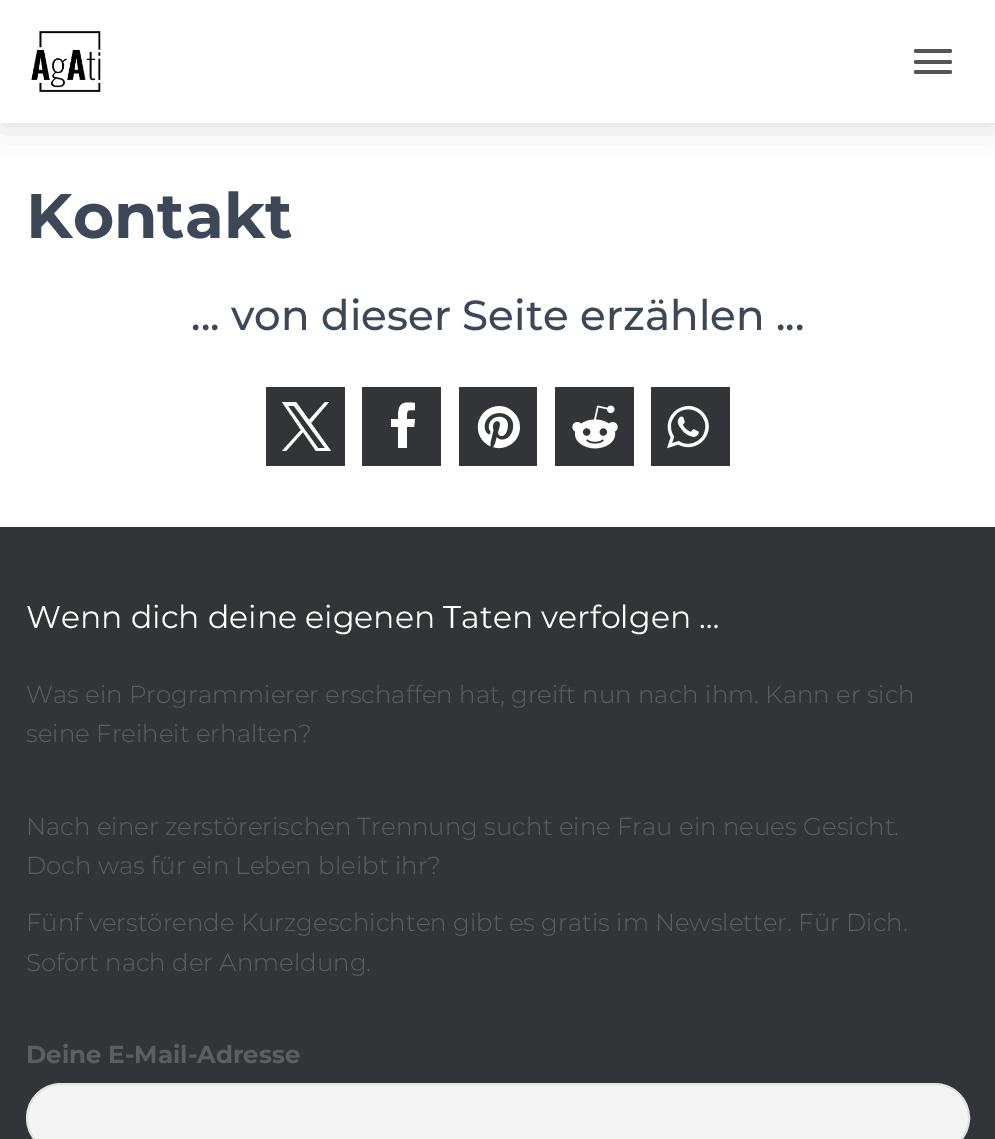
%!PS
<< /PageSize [995 1139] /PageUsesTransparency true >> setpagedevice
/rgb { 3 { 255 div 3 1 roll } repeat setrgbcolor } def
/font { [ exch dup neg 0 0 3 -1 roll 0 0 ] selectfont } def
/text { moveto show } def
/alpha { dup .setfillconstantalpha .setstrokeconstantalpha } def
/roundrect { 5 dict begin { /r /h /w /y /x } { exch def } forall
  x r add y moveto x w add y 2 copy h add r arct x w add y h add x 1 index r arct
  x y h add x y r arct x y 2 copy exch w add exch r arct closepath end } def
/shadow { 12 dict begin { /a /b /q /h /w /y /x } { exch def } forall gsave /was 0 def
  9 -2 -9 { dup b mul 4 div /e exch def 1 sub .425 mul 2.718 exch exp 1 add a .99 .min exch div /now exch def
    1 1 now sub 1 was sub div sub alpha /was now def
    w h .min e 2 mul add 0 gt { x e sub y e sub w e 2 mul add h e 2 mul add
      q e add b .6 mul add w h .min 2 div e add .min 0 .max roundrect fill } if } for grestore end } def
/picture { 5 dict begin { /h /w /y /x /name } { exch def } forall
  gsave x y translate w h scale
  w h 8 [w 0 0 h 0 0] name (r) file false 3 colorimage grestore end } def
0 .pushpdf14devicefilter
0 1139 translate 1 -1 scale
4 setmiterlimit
255 255 255 rgb
0 0 995 1139 rectfill
0 0 0 rgb
0 0 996 123 0 17.5 0.15 shadow
255 255 255 rgb
0 0 995 123 rectfill
(img_01.rgb) 31 31 70 61 picture
85 85 85 rgb
914 49 38 4 2 roundrect fill
914 60 38 4 2 roundrect fill
914 70 38 4 2 roundrect fill
50 52 55 rgb
266 387 79 79 1 roundrect fill
255 255 255 rgb
311 423 moveto 18 -21 rlineto -4 0 rlineto -16 18 rlineto -13 -18 rlineto -14 0 rlineto 19 28 rlineto -19 21 rlineto 4 0 rlineto 17 -19 rlineto 13 19 rlineto 15 0 rlineto closepath 305 430 moveto -17 -24 rlineto 6 0 rlineto 31 42 rlineto -7 0 rlineto closepath fill
50 52 55 rgb
362 387 79 79 1 roundrect fill
255 255 255 rgb
415 403 moveto 0 7 rlineto -9 0 -8 0 -8 9 rcurveto 8 0 rlineto -1 8 rlineto -7 0 rlineto 0 21 rlineto -9 0 rlineto 0 -21 rlineto -7 0 rlineto 0 -8 rlineto 7 0 rlineto 0 -14 2 -18 17 -16 rcurveto closepath fill
50 52 55 rgb
459 387 78 79 1 roundrect fill
(img_02.rgb) 477 406 43 43 picture
555 387 79 79 1 roundrect fill
(img_03.rgb) 572 405 46 44 picture
651 387 79 79 1 roundrect fill
(img_04.rgb) 667 405 42 44 picture
0 527 995 612 rectfill
244 244 244 rgb
27 1084 942 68 34 roundrect gsave fill grestore
227 227 227 rgb
2 setlinewidth
stroke
/Montserrat-Bold 63 font
60 72 88 rgb
(Kontakt) 26 238 text
/Montserrat-Medium 42 font
(... von dieser Seite erzählen ...) 191 330 text
/Montserrat-Regular 31.5 font
255 255 255 rgb
(Wenn dich deine eigenen Taten verfolgen …) 26 628 text
/Montserrat-Light 24.5 font
94 94 94 rgb
(Was ein Programmierer erschaffen hat, greift nun nach ihm. Kann er sich) 26 703 text
(seine Freiheit erhalten?) 26 742 text
(Nach einer zerstörerischen Trennung sucht eine Frau ein neues Gesicht.) 26 835 text
(Doch was für ein Leben bleibt ihr?) 26 874 text
(Fünf verstörende Kurzgeschichten gibt es gratis im Newsletter. Für Dich.) 26 931 text
(Sofort nach der Anmeldung.) 26 971 text
/Montserrat-Bold 24.5 font
(Deine E-Mail-Adresse) 26 1063 text
.poppdf14devicefilter showpage
